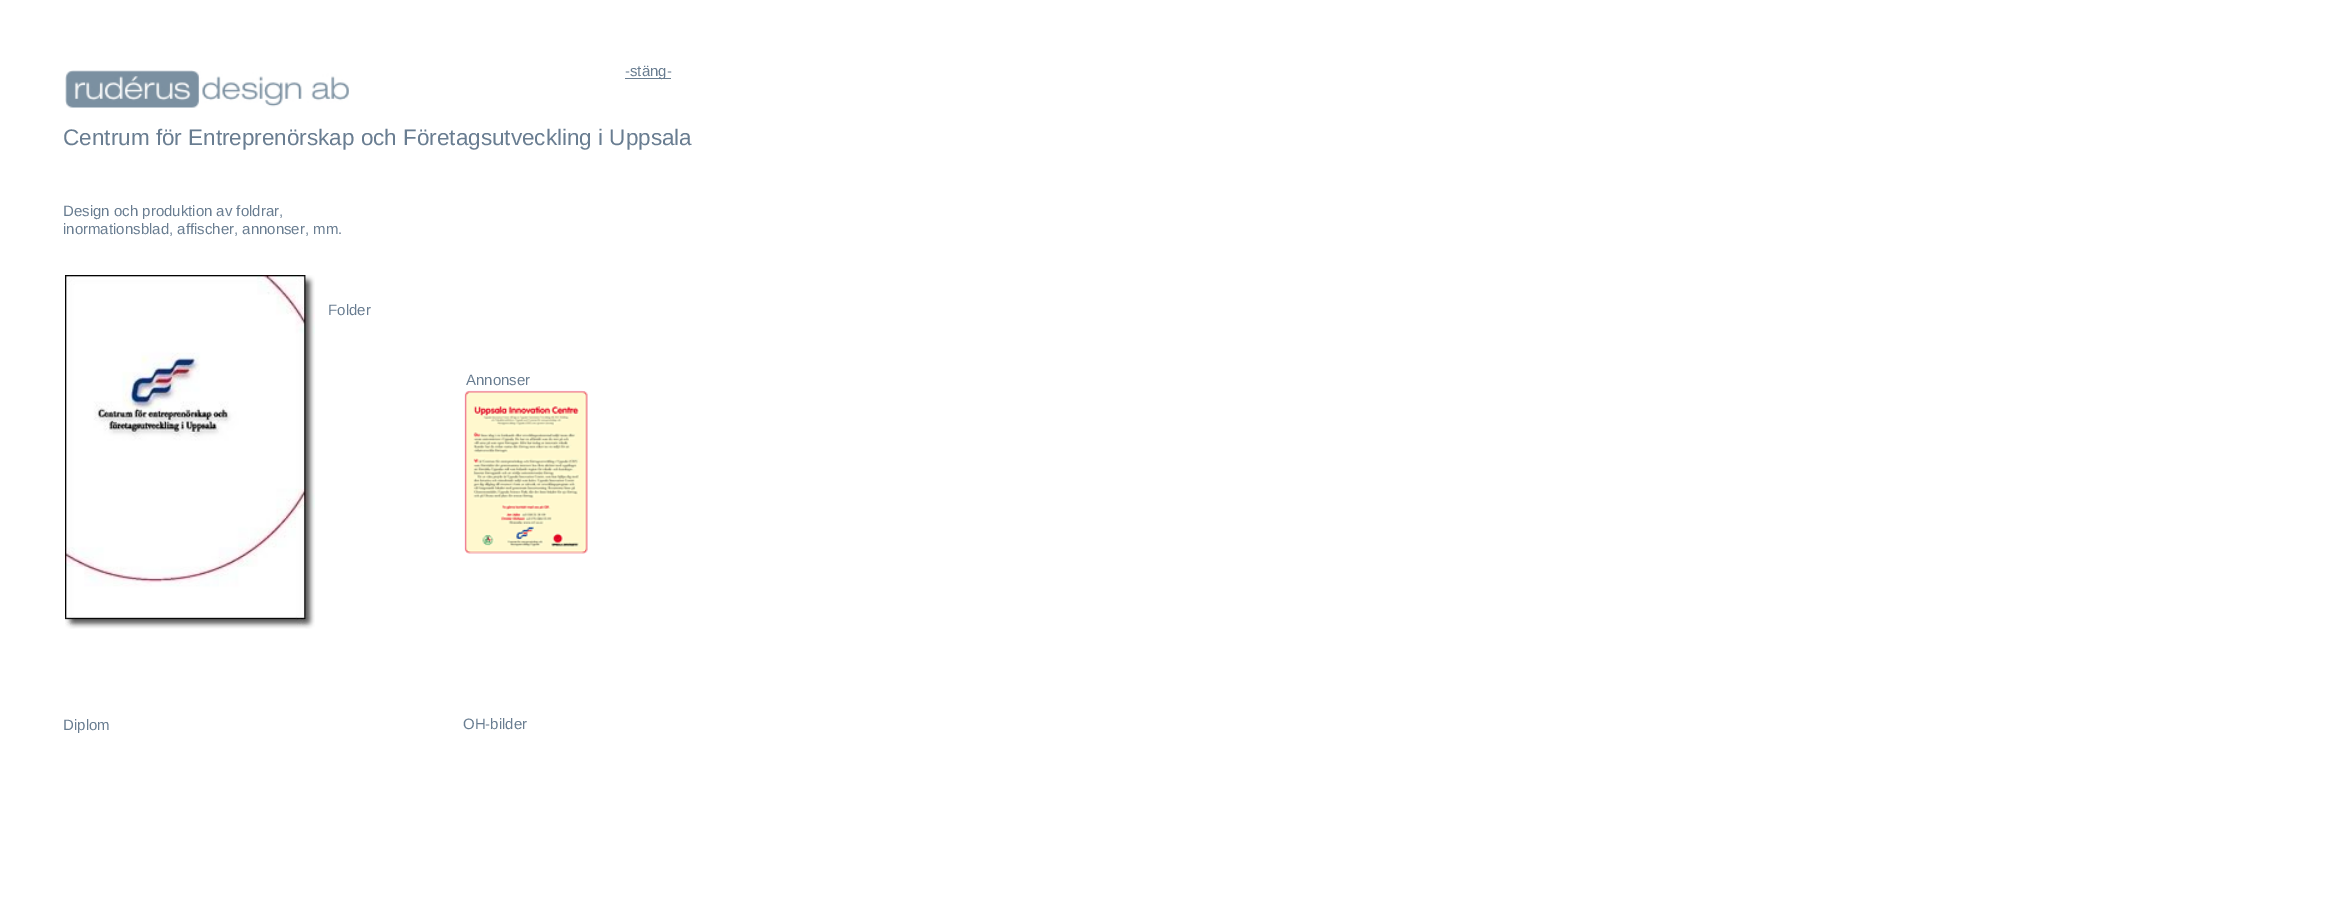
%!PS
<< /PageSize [2334 924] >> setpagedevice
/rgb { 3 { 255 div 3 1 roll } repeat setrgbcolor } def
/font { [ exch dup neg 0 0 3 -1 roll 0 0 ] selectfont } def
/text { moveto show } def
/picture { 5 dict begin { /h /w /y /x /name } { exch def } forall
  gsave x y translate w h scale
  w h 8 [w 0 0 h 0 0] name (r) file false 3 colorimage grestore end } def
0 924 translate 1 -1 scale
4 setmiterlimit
255 255 255 rgb
0 0 2334 924 rectfill
(img_01.rgb) 65 70 284 38 picture
105 125 145 rgb
625 78 46 1 rectfill
(img_02.rgb) 65 275 250 354 picture
(img_03.rgb) 464 390 124 164 picture
/LiberationSans-Regular 15 font
(-stäng-) 625 76 text
/LiberationSans-Regular 22.5 font
(Centrum för Entreprenörskap och Företagsutveckling i Uppsala) 63 145 text
/LiberationSans-Regular 15 font
(Design och produktion av foldrar,) 63 216 text
(inormationsblad, affischer, annonser, mm.) 63 234 text
(Folder) 328 315 text
(Annonser) 466 385 text
(Diplom) 63 730 text
(OH-bilder) 463 729 text
showpage
